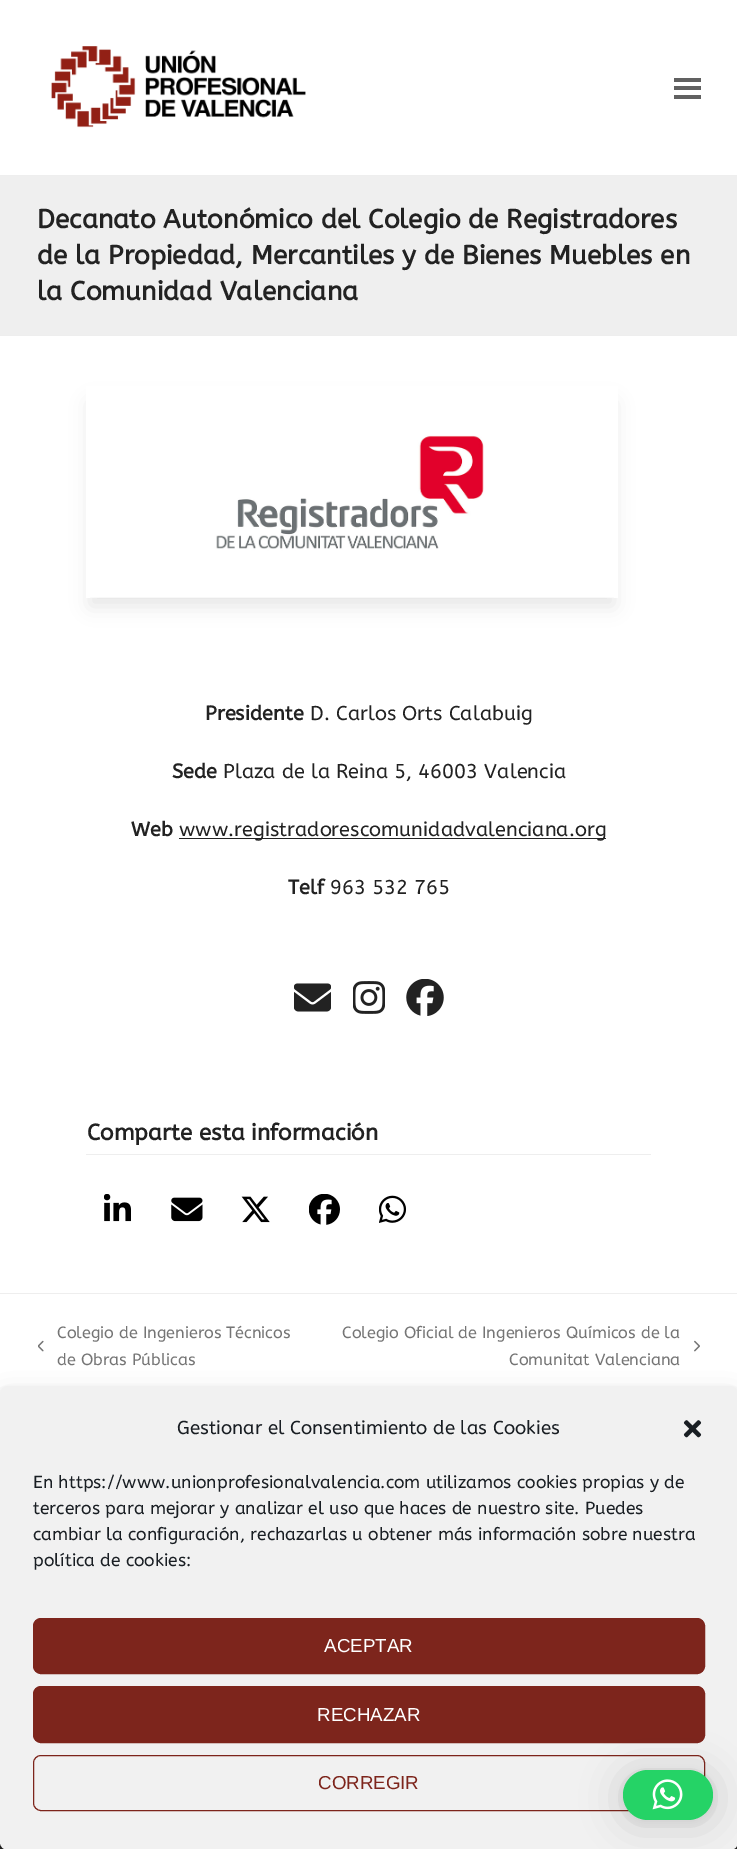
%!PS
<< /PageSize [737 1849] /PageUsesTransparency true >> setpagedevice
/rgb { 3 { 255 div 3 1 roll } repeat setrgbcolor } def
/font { [ exch dup neg 0 0 3 -1 roll 0 0 ] selectfont } def
/text { moveto show } def
/alpha { dup .setfillconstantalpha .setstrokeconstantalpha } def
/roundrect { 5 dict begin { /r /h /w /y /x } { exch def } forall
  x r add y moveto x w add y 2 copy h add r arct x w add y h add x 1 index r arct
  x y h add x y r arct x y 2 copy exch w add exch r arct closepath end } def
/shadow { 12 dict begin { /a /b /q /h /w /y /x } { exch def } forall gsave /was 0 def
  9 -2 -9 { dup b mul 4 div /e exch def 1 sub .425 mul 2.718 exch exp 1 add a .99 .min exch div /now exch def
    1 1 now sub 1 was sub div sub alpha /was now def
    w h .min e 2 mul add 0 gt { x e sub y e sub w e 2 mul add h e 2 mul add
      q e add b .6 mul add w h .min 2 div e add .min 0 .max roundrect fill } if } for grestore end } def
/picture { 5 dict begin { /h /w /y /x /name } { exch def } forall
  gsave x y translate w h scale
  w h 8 [w 0 0 h 0 0] name (r) file false 3 colorimage grestore end } def
0 .pushpdf14devicefilter
0 1849 translate 1 -1 scale
4 setmiterlimit
255 255 255 rgb
0 0 737 1849 rectfill
(img_01.rgb) 51 46 255 82 picture
97 97 97 rgb
674 86 27 4 rectfill
674 78 27 4 rectfill
674 95 27 4 rectfill
239 239 239 rgb
0 176 737 159 rectfill
238 238 238 rgb
0 175 737 1 rectfill
0 335 737 1 rectfill
gsave
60 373 moveto 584 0 rlineto 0 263 rlineto -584 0 rlineto closepath 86 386 moveto 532 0 rlineto 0 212 rlineto -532 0 rlineto closepath eoclip newpath
0 0 0 rgb
90 403 524 203 0 9.5 0.1 shadow
grestore
(img_02.rgb) 90 435 524 163 picture
34 34 34 rgb
179 838 427 1 rectfill
(img_03.rgb) 294 983 37 29 picture
(img_04.rgb) 353 981 32 33 picture
(img_05.rgb) 406 979 38 37 picture
238 238 238 rgb
86 1154 565 1 rectfill
(img_06.rgb) 104 1194 27 28 picture
(img_07.rgb) 171 1197 32 25 picture
(img_08.rgb) 241 1196 29 27 picture
(img_09.rgb) 309 1194 31 31 picture
(img_10.rgb) 379 1195 27 28 picture
0 1293 737 1 rectfill
(img_11.rgb) 38 1340 6 12 picture
(img_12.rgb) 694 1340 6 12 picture
38 38 38 rgb
0 1842 737 7 rectfill
0 0 0 rgb
0 1394 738 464 8 4 0.23 shadow
0 1399 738 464 8 12.5 0.19 shadow
241 241 241 rgb
4 1390 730 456 4 roundrect gsave fill grestore
8 setlinewidth
stroke
(img_13.rgb) 683 1420 19 18 picture
125 37 28 rgb
33.5 1618.5 671 55 7.5 roundrect gsave fill grestore
1 setlinewidth
stroke
33.5 1686.5 671 56 7.5 roundrect gsave fill grestore
stroke
33.5 1755.5 671 55 7.5 roundrect stroke
0 0 0 rgb
623 1773 90 50 25 20 0.16 shadow
623 1771 90 50 25 4 0.06 shadow
37 211 102 rgb
623 1770 90 50 25 roundrect fill
(img_14.rgb) 652 1779 31 31 picture
/ABeeZee-Bold 26.25 font
34 34 34 rgb
(Decanato Autonómico del Colegio de Registradores) 37 228 text
(de la Propiedad, Mercantiles y de Bienes Muebles en) 37 264 text
(la Comunidad Valenciana) 37 300 text
/ABeeZee-Bold 20 font
(Presidente) 205 720 text
/ABeeZee-Regular 20 font
(D. Carlos Orts Calabuig) 310 720 text
/ABeeZee-Bold 20 font
(Sede) 172 778 text
/ABeeZee-Regular 20 font
(Plaza de la Reina 5, 46003 Valencia) 223 778 text
/ABeeZee-Bold 20 font
(Web) 131 836 text
/ABeeZee-Regular 20 font
(www.registradorescomunidadvalenciana.org) 179 836 text
/ABeeZee-Bold 20 font
(Telf) 288 894 text
/ABeeZee-Regular 20 font
(963 532 765) 330 894 text
/ABeeZee-Bold 22.5 font
(Comparte esta información) 87 1140 text
/ABeeZee-Regular 16.25 font
117 117 117 rgb
(Colegio de Ingenieros Técnicos) 57 1338 text
(de Obras Públicas) 57 1365 text
(Colegio Oficial de Ingenieros Químicos de la) 342 1338 text
(Comunitat Valenciana) 509 1365 text
/ABeeZee-Regular 18.75 font
25 30 35 rgb
(Gestionar el Consentimiento de las Cookies) 177 1434 text
/ABeeZee-Regular 17.5 font
(En https://www.unionprofesionalvalencia.com utilizamos cookies propias y de) 33 1488 text
(terceros para mejorar y analizar el uso que haces de nuestro site. Puedes) 33 1514 text
(cambiar la configuración, rechazarlas u obtener más información sobre nuestra) 33 1540 text
(política de cookies:) 33 1566 text
/LiberationSans-Regular 18.75 font
255 255 255 rgb
(ACEPTAR) 324 1652 text
(RECHAZAR) 317 1721 text
125 37 28 rgb
(CORREGIR) 318 1789 text
.poppdf14devicefilter showpage
